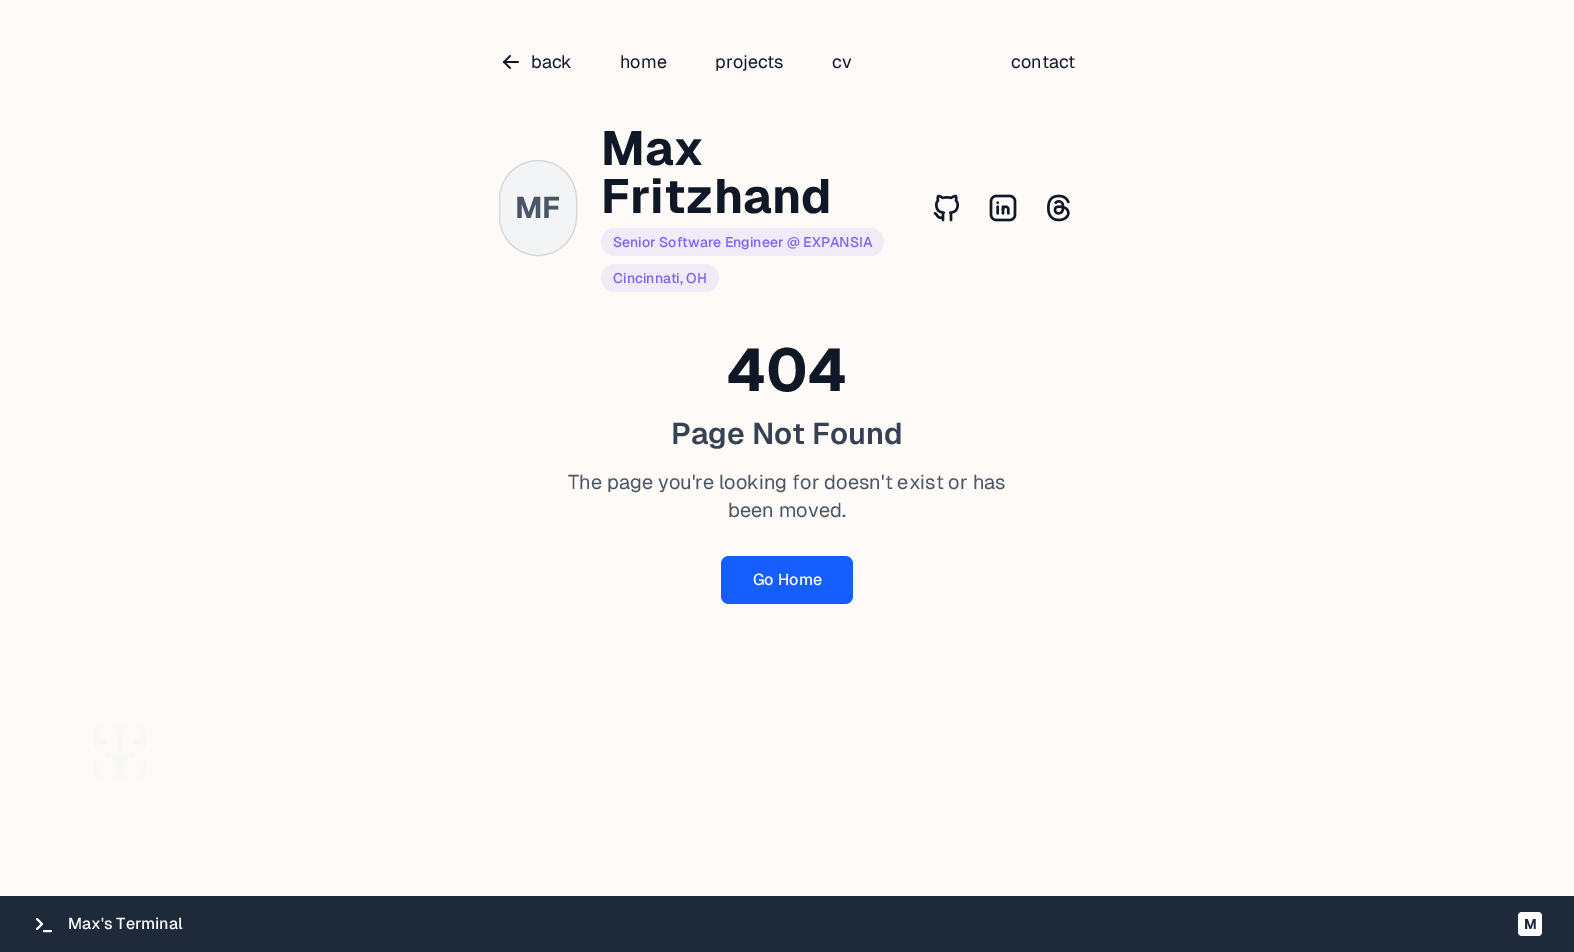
%!PS
<< /PageSize [1574 952] >> setpagedevice
/rgb { 3 { 255 div 3 1 roll } repeat setrgbcolor } def
/font { [ exch dup neg 0 0 3 -1 roll 0 0 ] selectfont } def
/text { moveto show } def
/roundrect { 5 dict begin { /r /h /w /y /x } { exch def } forall
  x r add y moveto x w add y 2 copy h add r arct x w add y h add x 1 index r arct
  x y h add x y r arct x y 2 copy exch w add exch r arct closepath end } def
/picture { 5 dict begin { /h /w /y /x /name } { exch def } forall
  gsave x y translate w h scale
  w h 8 [w 0 0 h 0 0] name (r) file false 3 colorimage grestore end } def
0 952 translate 1 -1 scale
4 setmiterlimit
253 250 247 rgb
0 0 1574 952 rectfill
(img_01.rgb) 503 55 16 14 picture
243 244 246 rgb
499.5 160.5 77 95 38.5 roundrect gsave fill grestore
209 213 220 rgb
stroke
240 235 247 rgb
601 228 283 28 14 roundrect fill
601 264 118 28 14 roundrect fill
(img_02.rgb) 933 194 26 28 picture
(img_03.rgb) 989 194 28 28 picture
(img_04.rgb) 1047 194 23 28 picture
21 93 252 rgb
721 556 132 48 8 roundrect fill
(img_05.rgb) 94 725 52 54 picture
30 41 57 rgb
0 896 1574 56 rectfill
255 255 255 rgb
2 setlinewidth
1 setlinecap
1 setlinejoin
37 919 moveto 5 5 rlineto -5 5 rlineto 44 931 moveto 7 0 rlineto stroke
1518 912 24 24 4 roundrect fill
/Geist-Regular 18 font
16 24 40 rgb
(back) 531 68 text
(home) 620 68 text
(projects) 715 68 text
(cv) 832 68 text
(contact) 1011 68 text
/Geist-Bold 30 font
74 85 101 rgb
(MF) 515 218 text
/Geist-Bold 48 font
16 24 40 rgb
(Max) 601 165 text
(Fritzhand) 601 213 text
/Geist-Medium 14 font
125 98 244 rgb
(Senior Software Engineer @ EXPANSIA) 613 247 text
(Cincinnati, OH) 613 283 text
/Geist-Bold 60 font
16 24 40 rgb
(404) 727 391 text
/Geist-SemiBold 30 font
54 65 83 rgb
(Page Not Found) 671 444 text
/Geist-Regular 20 font
74 85 101 rgb
(The page you're looking for doesn't exist or has) 568 489 text
(been moved.) 728 517 text
/Geist-Medium 16 font
255 255 255 rgb
(Go Home) 753 585 text
(Max's Terminal) 68 929 text
/Geist-Bold 14 font
30 41 57 rgb
(M) 1524 929 text
showpage
